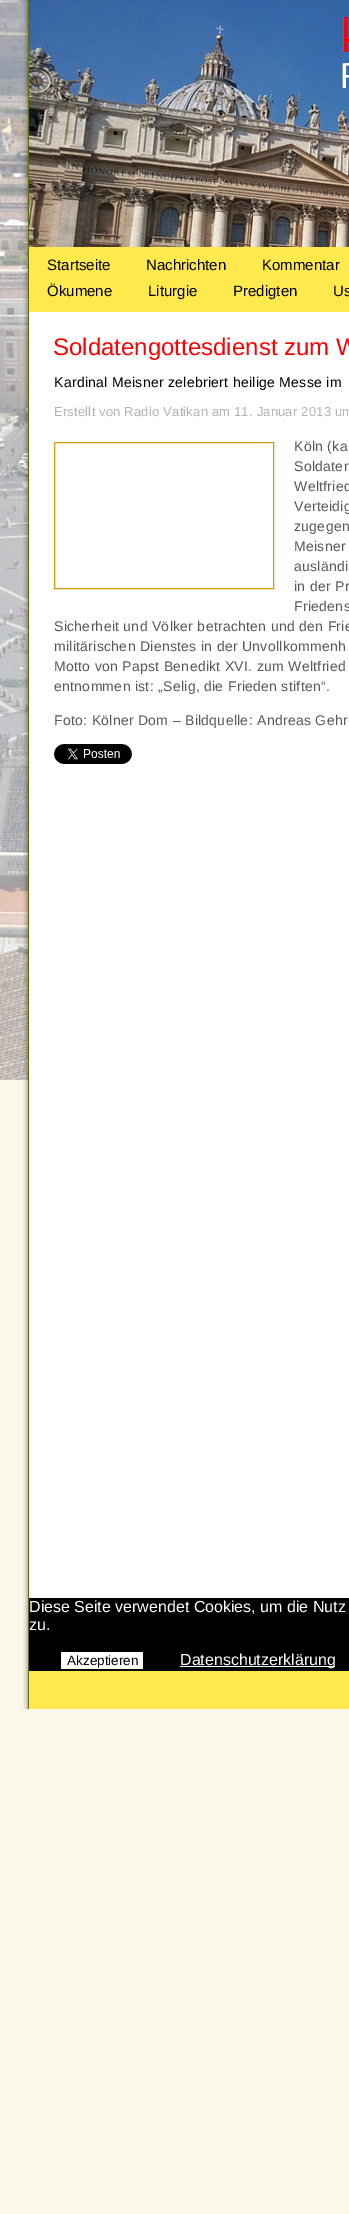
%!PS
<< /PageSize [349 2214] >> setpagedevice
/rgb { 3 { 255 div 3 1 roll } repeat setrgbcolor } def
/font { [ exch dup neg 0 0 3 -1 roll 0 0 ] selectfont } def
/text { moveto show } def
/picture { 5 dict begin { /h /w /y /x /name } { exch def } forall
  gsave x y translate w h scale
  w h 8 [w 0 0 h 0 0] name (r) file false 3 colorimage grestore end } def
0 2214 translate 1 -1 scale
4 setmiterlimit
251 247 235 rgb
0 0 349 2214 rectfill
(img_01.rgb) 0 0 29 1080 picture
(img_02.rgb) 23 0 326 1709 picture
(img_03.rgb) 29 0 320 247 picture
255 233 77 rgb
29 247 320 65 rectfill
206 157 9 rgb
54.5 442.5 219 146 rectstroke
(img_04.rgb) 54 744 78 20 picture
0 0 0 rgb
29 1598 320 73 rectfill
255 255 255 rgb
61 1652 82 17 rectfill
180 1666 155 1 rectfill
255 233 77 rgb
29 1671 320 38 rectfill
/LiberationSans-Regular 15 font
0 0 0 rgb
(Startseite) 47 270 text
(Nachrichten) 146 270 text
(Kommentar) 262 270 text
(Ökumene) 47 296 text
(Liturgie) 148 296 text
(Predigten) 233 296 text
(Us) 333 296 text
/LiberationSans-Regular 24 font
250 2 4 rgb
(Soldatengottesdienst zum W) 53 355 text
/LiberationSans-Regular 14 font
0 0 0 rgb
54 387 moveto 0.3 0 (Kardinal Meisner zelebriert heilige Messe im) ashow
/LiberationSans-Regular 13 font
180 180 180 rgb
54 416 moveto 0.2 0 (Erstellt von Radio Vatikan am 11. Januar 2013 um) ashow
/LiberationSans-Regular 14 font
88 88 90 rgb
294 451 moveto 0.3 0 (Köln \(ka) ashow
294 471 moveto 0.3 0 (Soldaten) ashow
294 491 moveto 0.3 0 (Weltfried) ashow
294 511 moveto 0.3 0 (Verteidig) ashow
294 531 moveto 0.3 0 (zugegen) ashow
294 551 moveto 0.3 0 (Meisner) ashow
294 571 moveto 0.3 0 (ausländi) ashow
294 591 moveto 0.3 0 (in der Pr) ashow
294 611 moveto 0.3 0 (Friedens) ashow
54 631 moveto 0.3 0 (Sicherheit und Völker betrachten und den Frie) ashow
54 651 moveto 0.3 0 (militärischen Dienstes in der Unvollkommenh) ashow
54 671 moveto 0.3 0 (Motto von Papst Benedikt XVI. zum Weltfried) ashow
54 691 moveto 0.3 0 (entnommen ist: „Selig, die Frieden stiften“.) ashow
54 725 moveto 0.3 0 (Foto: Kölner Dom – Bildquelle: Andreas Gehr) ashow
/LiberationSans-Regular 16 font
255 255 255 rgb
(Diese Seite verwendet Cookies, um die Nutz) 29 1612 text
(zu.) 29 1630 text
/LiberationSans-Regular 13.5 font
0 0 0 rgb
(Akzeptieren) 67 1665 text
/LiberationSans-Regular 16 font
255 255 255 rgb
(Datenschutzerklärung) 180 1665 text
showpage
